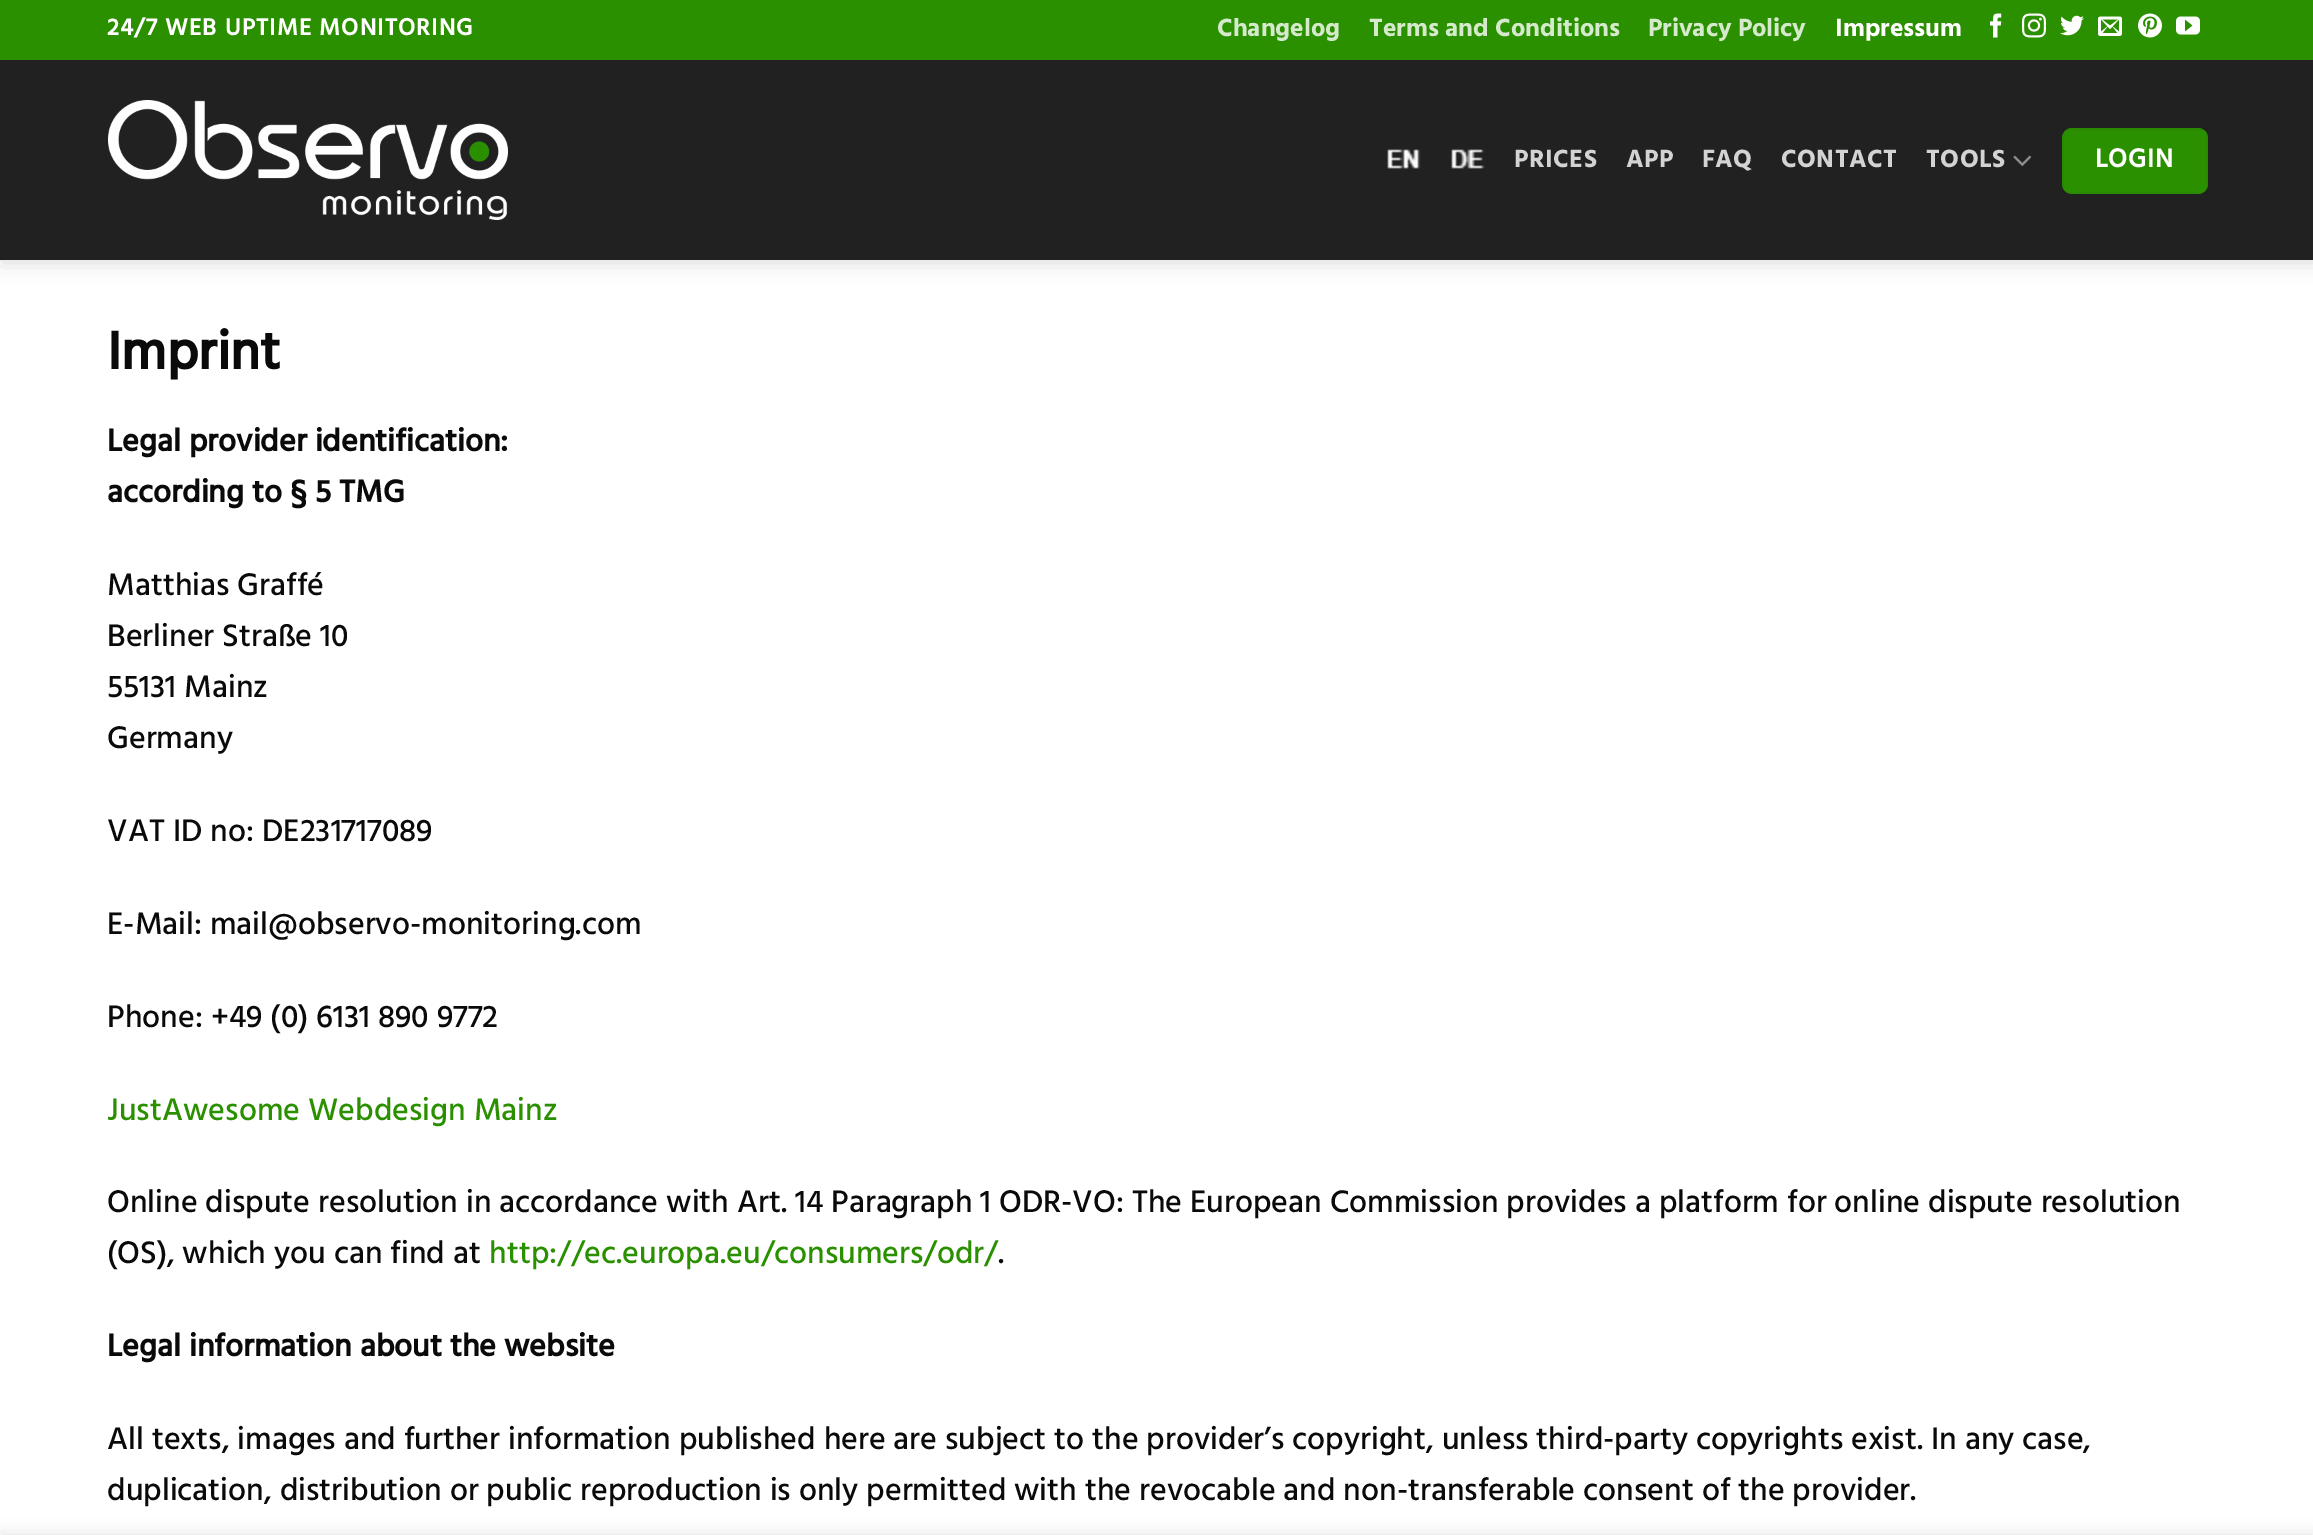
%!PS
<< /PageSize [2313 1535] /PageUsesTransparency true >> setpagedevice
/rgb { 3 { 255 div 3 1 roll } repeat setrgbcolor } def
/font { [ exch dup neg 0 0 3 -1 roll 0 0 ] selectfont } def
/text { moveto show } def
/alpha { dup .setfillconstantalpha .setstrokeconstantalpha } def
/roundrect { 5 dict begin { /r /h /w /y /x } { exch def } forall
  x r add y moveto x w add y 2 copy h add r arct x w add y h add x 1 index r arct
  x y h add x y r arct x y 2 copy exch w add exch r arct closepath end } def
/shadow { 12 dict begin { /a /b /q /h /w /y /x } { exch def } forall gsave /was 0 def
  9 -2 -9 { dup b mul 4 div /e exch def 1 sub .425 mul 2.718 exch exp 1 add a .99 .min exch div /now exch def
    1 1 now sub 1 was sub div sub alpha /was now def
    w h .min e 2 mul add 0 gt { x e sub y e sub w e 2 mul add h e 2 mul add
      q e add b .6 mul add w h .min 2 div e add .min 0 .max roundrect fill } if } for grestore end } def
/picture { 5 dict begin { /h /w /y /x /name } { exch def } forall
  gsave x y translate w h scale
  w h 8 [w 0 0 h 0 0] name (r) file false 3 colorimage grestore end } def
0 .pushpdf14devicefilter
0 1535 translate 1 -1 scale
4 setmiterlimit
255 255 255 rgb
0 0 2313 1535 rectfill
0 0 0 rgb
2 2 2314 260 0 10 0.15 shadow
43 144 0 rgb
0 0 2313 60 rectfill
(img_01.rgb) 1990 13 12 25 picture
(img_02.rgb) 2022 13 24 25 picture
(img_03.rgb) 2060 15 24 21 picture
(img_04.rgb) 2098 16 24 20 picture
(img_05.rgb) 2138 13 24 25 picture
(img_06.rgb) 2176 16 24 19 picture
33 33 33 rgb
0 60 2313 200 rectfill
(img_07.rgb) 108 100 400 120 picture
(img_08.rgb) 1387 149 34 20 picture
(img_09.rgb) 1451 149 34 20 picture
(img_10.rgb) 2013 155 19 11 picture
43 144 0 rgb
2062 128 146 66 10 roundrect fill
0.05 alpha
0 0 0 rgb
2 setlinewidth
2063 129 144 64 rectstroke
1 alpha
0 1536 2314 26 0 9 0.14 shadow
/Hind-Bold 24 font
255 255 255 rgb
107 35 moveto 1.2 0 (24/7 WEB UPTIME MONITORING) ashow
/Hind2-Bold 25.5 font
213 233 204 rgb
(Changelog) 1217 36 text
(Terms and Conditions) 1369 36 text
(Privacy Policy) 1648 36 text
255 255 255 rgb
(Impressum) 1835 36 text
211 211 211 rgb
1514 167 moveto 0.5 0 (PRICES) ashow
1626 167 moveto 0.5 0 (APP) ashow
1702 167 moveto 0.5 0 (FAQ) ashow
1781 167 moveto 0.5 0 (CONTACT) ashow
1926 167 moveto 0.5 0 (TOOLS) ashow
/Hind-Bold 26.5 font
255 255 255 rgb
2095 167 moveto 0.75 0 (LOGIN) ashow
/Hind-Bold 54.5 font
10 10 10 rgb
(Imprint) 107 369 text
/Hind-Bold 32 font
(Legal provider identification:) 107 451 text
(according to § 5 TMG) 107 502 text
/Hind-Medium 32 font
(Matthias Graffé) 107 595 text
(Berliner Straße 10) 107 646 text
(55131 Mainz) 107 697 text
(Germany) 107 748 text
(VAT ID no: DE231717089) 107 841 text
(E-Mail: mail@observo-monitoring.com) 107 934 text
(Phone: +49 \(0\) 6131 890 9772) 107 1027 text
43 144 0 rgb
(JustAwesome Webdesign Mainz) 107 1120 text
10 10 10 rgb
(Online dispute resolution in accordance with Art. 14 Paragraph 1 ODR-VO: The European Commission provides a platform for online dispute resolution) 107 1212 text
(\(OS\), which you can find at) 107 1263 text
43 144 0 rgb
(http://ec.europa.eu/consumers/odr/) 489 1263 text
10 10 10 rgb
(.) 998 1263 text
/Hind-Bold 32 font
(Legal information about the website) 107 1356 text
/Hind-Medium 32 font
(All texts, images and further information published here are subject to the provider’s copyright, unless third-party copyrights exist. In any case,) 107 1449 text
(duplication, distribution or public reproduction is only permitted with the revocable and non-transferable consent of the provider.) 107 1500 text
.poppdf14devicefilter showpage
